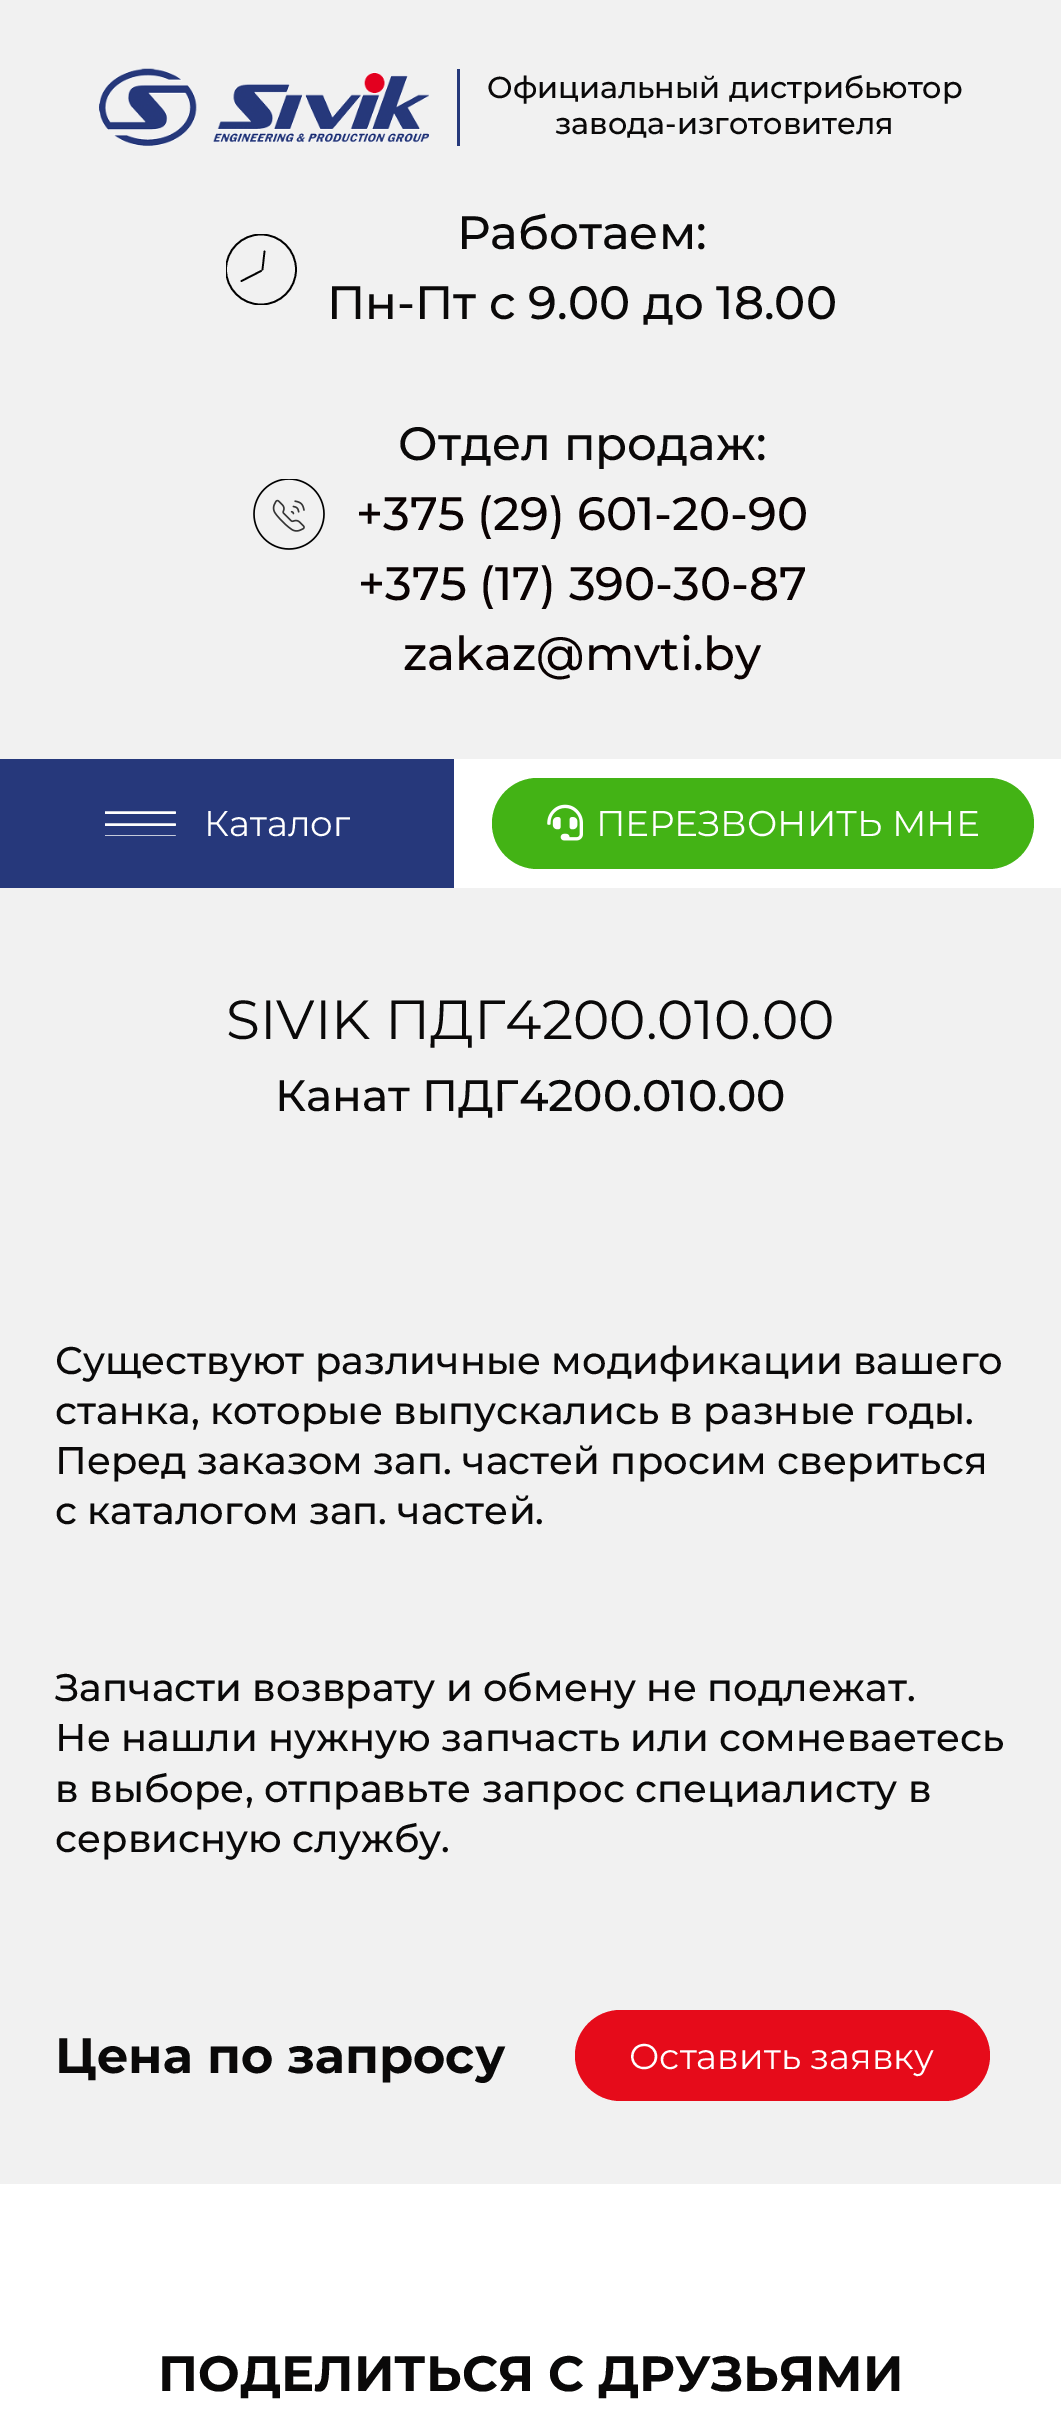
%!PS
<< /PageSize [1061 2412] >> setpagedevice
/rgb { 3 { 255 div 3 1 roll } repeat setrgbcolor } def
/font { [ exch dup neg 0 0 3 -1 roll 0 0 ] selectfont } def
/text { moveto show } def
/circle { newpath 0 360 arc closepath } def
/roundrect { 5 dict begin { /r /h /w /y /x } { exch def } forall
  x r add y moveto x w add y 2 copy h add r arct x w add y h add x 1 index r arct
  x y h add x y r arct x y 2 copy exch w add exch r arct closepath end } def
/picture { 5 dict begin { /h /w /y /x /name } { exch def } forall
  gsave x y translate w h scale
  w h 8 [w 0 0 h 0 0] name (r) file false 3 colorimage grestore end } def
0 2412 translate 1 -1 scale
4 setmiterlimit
255 255 255 rgb
0 0 1061 2412 rectfill
241 241 241 rgb
0 0 1061 759 rectfill
38 57 123 rgb
457 69 3 77 rectfill
(img_01.rgb) 99 68 330 78 picture
gsave
226 234 71 71 rectclip
0 0 0 rgb
1.7 setlinewidth
261 269.5 35 circle stroke
grestore
0 0 0 rgb
1.7 setlinewidth
1 setlinecap
264.5 251.5 moveto -2 18 rlineto 241.5 281 moveto 19.5 -10 rlineto stroke
(img_02.rgb) 253 479 72 71 picture
38 56 123 rgb
0 759 454 129 rectfill
gsave
105 811 71 25 rectclip
255 255 255 rgb
2.4 setlinewidth
105.5 812.5 moveto 69.5 0 rlineto stroke
105.5 824.5 moveto 69.5 0 rlineto stroke
105.5 836.5 moveto 69.5 0 rlineto stroke
grestore
67 179 21 rgb
492 778 542 91 45.5 roundrect fill
(img_03.rgb) 547 804 36 37 picture
241 241 241 rgb
0 888 1061 1296 rectfill
230 11 26 rgb
575 2010 415 91 45.5 roundrect fill
/Montserrat-Medium 30.25 font
10 9 9 rgb
(Официальный дистрибьютор) 487 98 text
(завода-изготовителя) 555 134 text
/Montserrat-Medium 46.75 font
(Работаем:) 457 249 text
(Пн-Пт с 9.00 до 18.00) 327 319 text
(Отдел продаж:) 398 460 text
10 2 2 rgb
(+375 \(29\) 601-20-90) 356 530 text
(+375 \(17\) 390-30-87) 358 600 text
(zakaz@mvti.by) 403 670 text
/Montserrat-Regular 35.75 font
255 255 255 rgb
(Каталог) 204 836 text
(ПЕРЕЗВОНИТЬ МНЕ) 596 836 text
/Montserrat-Regular 55 font
10 9 9 rgb
(SIVIK ПДГ4200.010.00) 226 1039 text
/Montserrat-Medium 44 font
(Канат ПДГ4200.010.00) 275 1111 text
/Montserrat-Medium 38.5 font
(Существуют различные модификации вашего) 55 1374 text
(станка, которые выпускались в разные годы.) 55 1424 text
(Перед заказом зап. частей просим свериться) 55 1474 text
(с каталогом зап. частей.) 55 1524 text
(Запчасти возврату и обмену не подлежат.) 55 1701 text
(Не нашли нужную запчасть или сомневаетесь) 55 1751 text
(в выборе, отправьте запрос специалисту в) 55 1802 text
(сервисную службу.) 55 1852 text
/Montserrat-Bold 49.5 font
(Цена по запросу) 55 2073 text
/Montserrat-Regular 35.75 font
255 255 255 rgb
(Оставить заявку) 629 2069 text
/Montserrat-Bold 49.5 font
10 9 9 rgb
(ПОДЕЛИТЬСЯ С ДРУЗЬЯМИ) 158 2391 text
showpage
